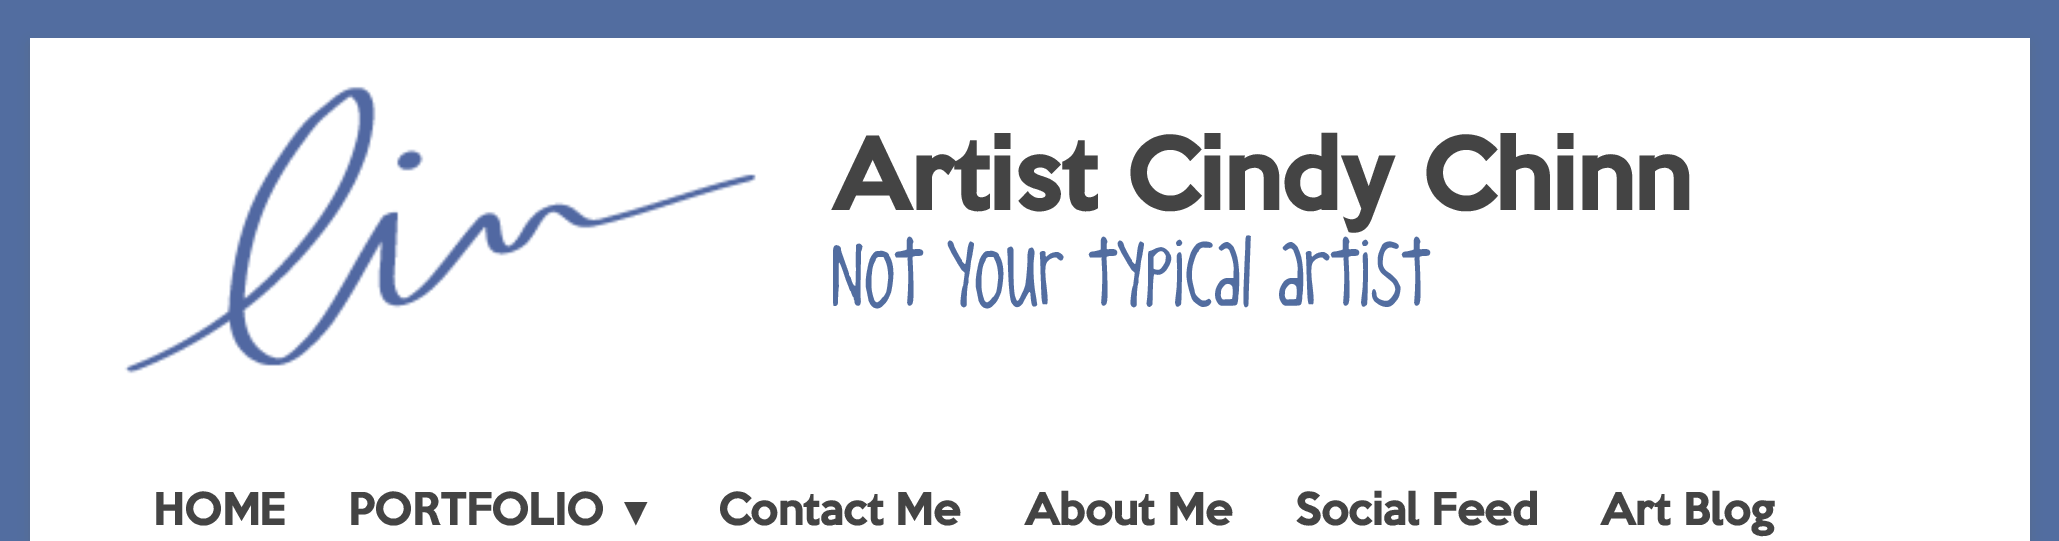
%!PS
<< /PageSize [2059 541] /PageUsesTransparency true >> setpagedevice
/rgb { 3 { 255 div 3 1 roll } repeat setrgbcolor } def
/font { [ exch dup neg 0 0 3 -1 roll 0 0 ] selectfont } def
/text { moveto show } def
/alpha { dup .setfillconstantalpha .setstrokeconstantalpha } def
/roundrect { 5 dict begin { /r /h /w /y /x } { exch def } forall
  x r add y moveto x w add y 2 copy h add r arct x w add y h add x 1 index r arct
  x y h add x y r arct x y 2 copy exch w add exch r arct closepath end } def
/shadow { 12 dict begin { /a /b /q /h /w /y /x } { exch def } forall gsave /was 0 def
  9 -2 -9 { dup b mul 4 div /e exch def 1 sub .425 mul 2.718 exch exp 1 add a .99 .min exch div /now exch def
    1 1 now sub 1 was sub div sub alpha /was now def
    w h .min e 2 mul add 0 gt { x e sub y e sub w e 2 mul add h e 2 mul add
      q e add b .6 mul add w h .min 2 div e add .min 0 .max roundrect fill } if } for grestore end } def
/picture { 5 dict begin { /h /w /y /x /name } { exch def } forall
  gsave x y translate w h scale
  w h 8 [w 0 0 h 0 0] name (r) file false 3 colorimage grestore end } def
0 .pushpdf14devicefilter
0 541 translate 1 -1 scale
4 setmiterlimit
82 109 160 rgb
0 0 2059 541 rectfill
100 100 100 rgb
30 43 2000 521 0 7.5 0.3 shadow
255 255 255 rgb
30 38 2000 503 rectfill
(img_01.rgb) 124 86 632 288 picture
/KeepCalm-Bold 90 font
68 68 68 rgb
(Artist Cindy Chinn) 831 210 text
/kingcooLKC-Regular 87.5 font
82 109 160 rgb
(Not your typical artist) 831 305 text
/KeepCalm-Bold 40 font
68 68 68 rgb
(HOME) 153 525 text
(PORTFOLIO) 348 525 text
/LiberationSerif-Bold 40 font
(▼) 616 525 text
/KeepCalm-Bold 40 font
(Contact Me) 718 525 text
(About Me) 1024 525 text
(Social Feed) 1295 525 text
(Art Blog) 1600 525 text
.poppdf14devicefilter showpage
